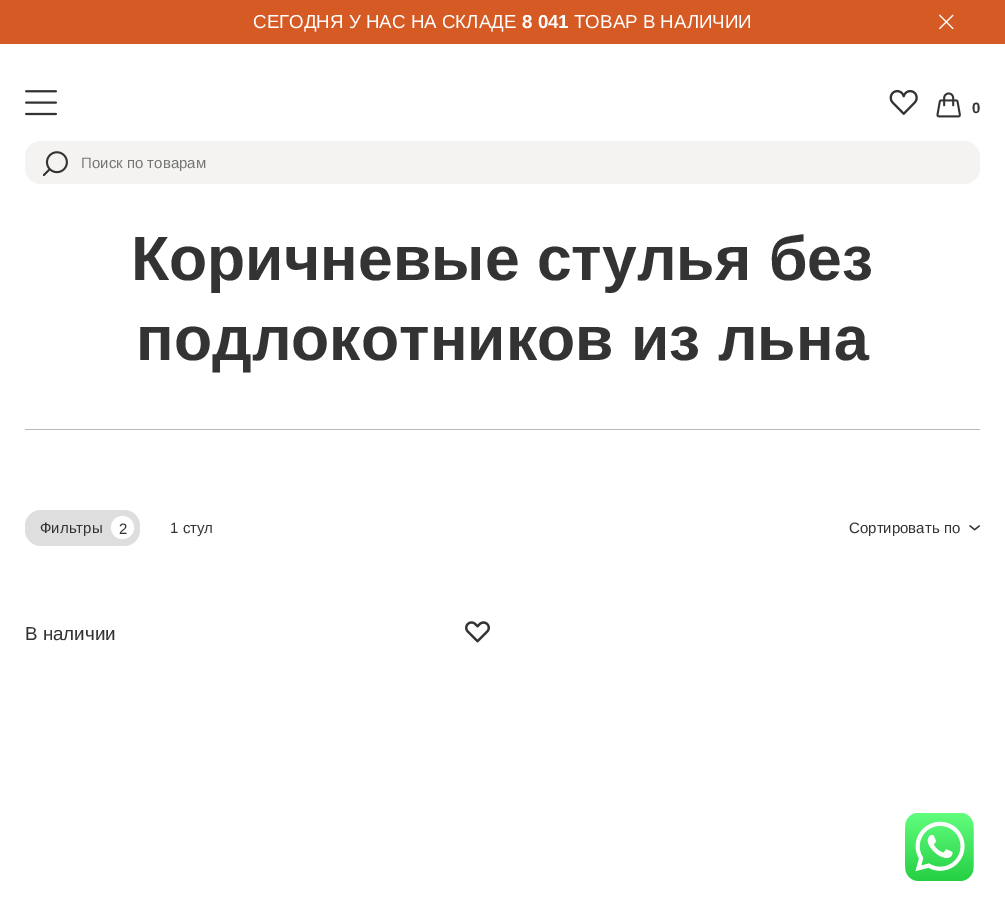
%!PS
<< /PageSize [1005 912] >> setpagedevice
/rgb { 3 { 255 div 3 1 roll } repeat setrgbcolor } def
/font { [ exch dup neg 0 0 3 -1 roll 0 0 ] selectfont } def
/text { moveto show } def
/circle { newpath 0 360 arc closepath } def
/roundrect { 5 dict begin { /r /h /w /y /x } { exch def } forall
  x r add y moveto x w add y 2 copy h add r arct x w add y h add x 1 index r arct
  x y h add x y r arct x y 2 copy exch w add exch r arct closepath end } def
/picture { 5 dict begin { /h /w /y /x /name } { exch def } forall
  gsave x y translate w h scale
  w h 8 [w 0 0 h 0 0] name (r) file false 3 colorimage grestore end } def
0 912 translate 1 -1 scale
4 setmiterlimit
255 255 255 rgb
0 0 1005 912 rectfill
214 90 36 rgb
0 0 1005 44 rectfill
(img_01.rgb) 939 14 15 15 picture
(img_02.rgb) 25 90 32 26 picture
(img_03.rgb) 889 89 29 26 picture
(img_04.rgb) 936 92 25 26 picture
244 243 241 rgb
25 141 955 43 16 roundrect fill
(img_05.rgb) 43 151 25 25 picture
184 184 184 rgb
25 429 955 1 rectfill
222 222 222 rgb
25 510 115 36 16 roundrect fill
255 255 255 rgb
122.5 527.5 11.5 circle fill
(img_06.rgb) 969 525 11 6 picture
(img_07.rgb) 465 621 25 22 picture
(img_08.rgb) 905 813 69 68 picture
/LiberationSans-Regular 18.75 font
(СЕГОДНЯ У НАС НА СКЛАДЕ) 253 28 text
/LiberationSans-Bold 18.75 font
(8 041) 522 28 text
/LiberationSans-Regular 18.75 font
(ТОВАР В НАЛИЧИИ) 574 28 text
/LiberationSans-Bold 15 font
51 51 51 rgb
(0) 972 113 text
/LiberationSans-Regular 15 font
117 117 117 rgb
(Поиск по товарам) 81 168 text
/LiberationSans-Bold 62.5 font
51 51 51 rgb
(Коричневые стулья без) 131 280 text
(подлокотников из льна) 136 360 text
/LiberationSans-Regular 15 font
(Фильтры) 40 533 text
(2) 119 534 text
(1 стул) 170 533 text
(Сортировать по) 849 533 text
/LiberationSans-Regular 18.75 font
(В наличии) 25 640 text
showpage
